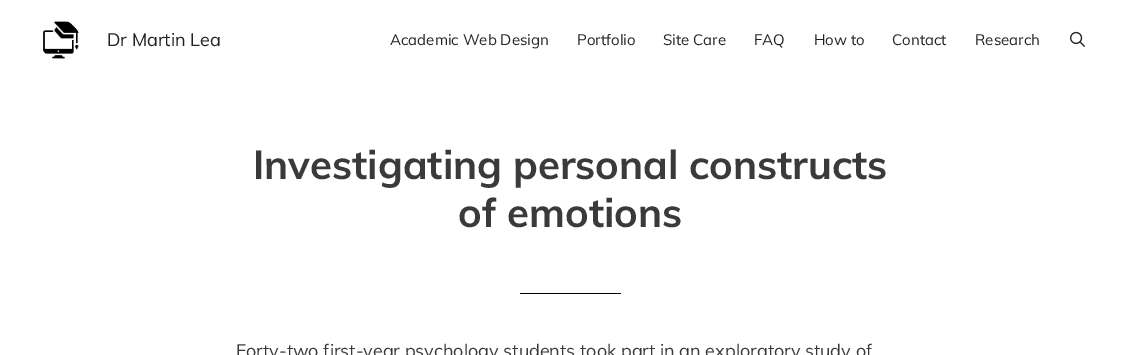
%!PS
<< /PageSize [1141 355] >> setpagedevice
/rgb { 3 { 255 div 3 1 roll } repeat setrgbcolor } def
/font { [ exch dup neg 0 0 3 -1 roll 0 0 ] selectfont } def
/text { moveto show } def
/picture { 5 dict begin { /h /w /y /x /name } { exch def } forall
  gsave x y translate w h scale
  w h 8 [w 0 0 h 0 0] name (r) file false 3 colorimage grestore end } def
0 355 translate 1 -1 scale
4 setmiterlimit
255 255 255 rgb
0 0 1141 355 rectfill
(img_01.rgb) 43 21 36 38 picture
(img_02.rgb) 1070 31 15 16 picture
0 0 0 rgb
520 293 101 1 rectfill
/Muli-Regular 18 font
34 34 34 rgb
(Dr Martin Lea) 107 46 text
/Muli-Regular 15 font
(Academic Web Design) 390 45 text
(Portfolio) 577 45 text
(Site Care) 663 45 text
(FAQ) 754 45 text
(How to) 814 45 text
(Contact) 892 45 text
(Research) 975 45 text
/Muli-Bold 40 font
58 58 58 rgb
(Investigating personal constructs) 253 179 text
(of emotions) 458 227 text
/Muli-Regular 18 font
(Forty-two first-year psychology students took part in an exploratory study of) 236 357 text
showpage
